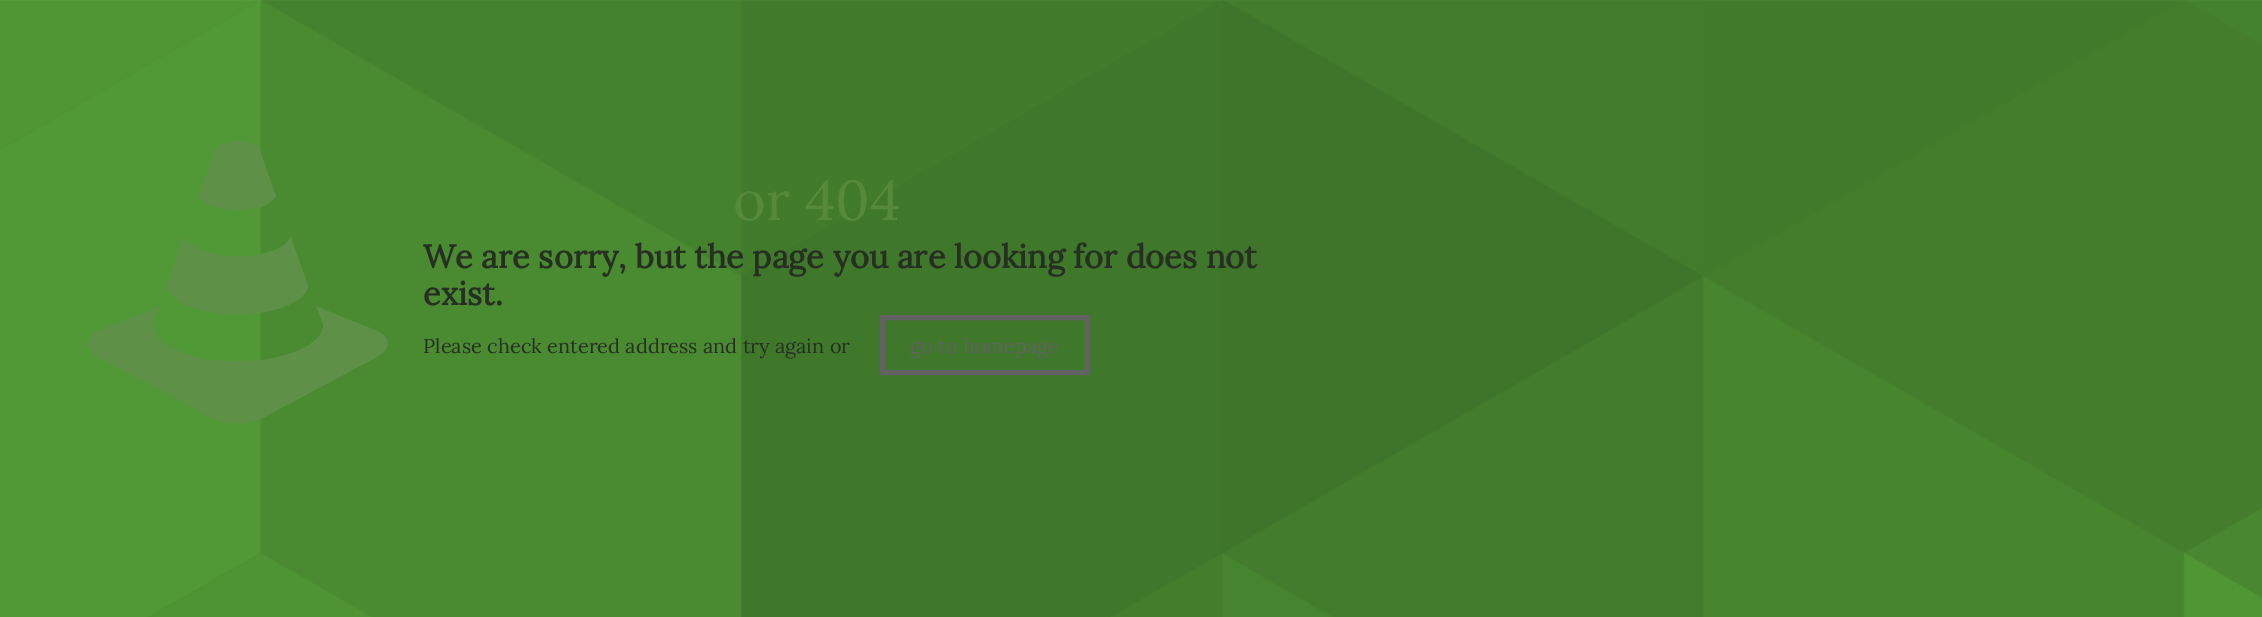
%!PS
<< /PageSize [2262 617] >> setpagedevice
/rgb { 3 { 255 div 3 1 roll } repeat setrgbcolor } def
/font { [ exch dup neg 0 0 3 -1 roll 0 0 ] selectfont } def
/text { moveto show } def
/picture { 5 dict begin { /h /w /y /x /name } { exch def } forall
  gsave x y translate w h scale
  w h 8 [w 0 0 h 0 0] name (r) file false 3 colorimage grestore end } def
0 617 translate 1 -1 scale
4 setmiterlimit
255 255 255 rgb
0 0 2262 617 rectfill
(img_01.rgb) 0 0 2262 617 picture
(img_02.rgb) 87 141 301 282 picture
98 98 98 rgb
5 setlinewidth
882.5 317.5 205 55 rectstroke
/Lora-Regular 56 font
86 138 58 rgb
(or 404) 733 220 text
/Lora-Bold 32.5 font
39 47 35 rgb
(We are sorry, but the page you are looking for does not) 423 268 text
(exist.) 423 305 text
/Lora-Regular 20 font
(Please check entered address and try again or) 423 353 text
98 98 98 rgb
(go to homepage) 910 353 text
showpage
